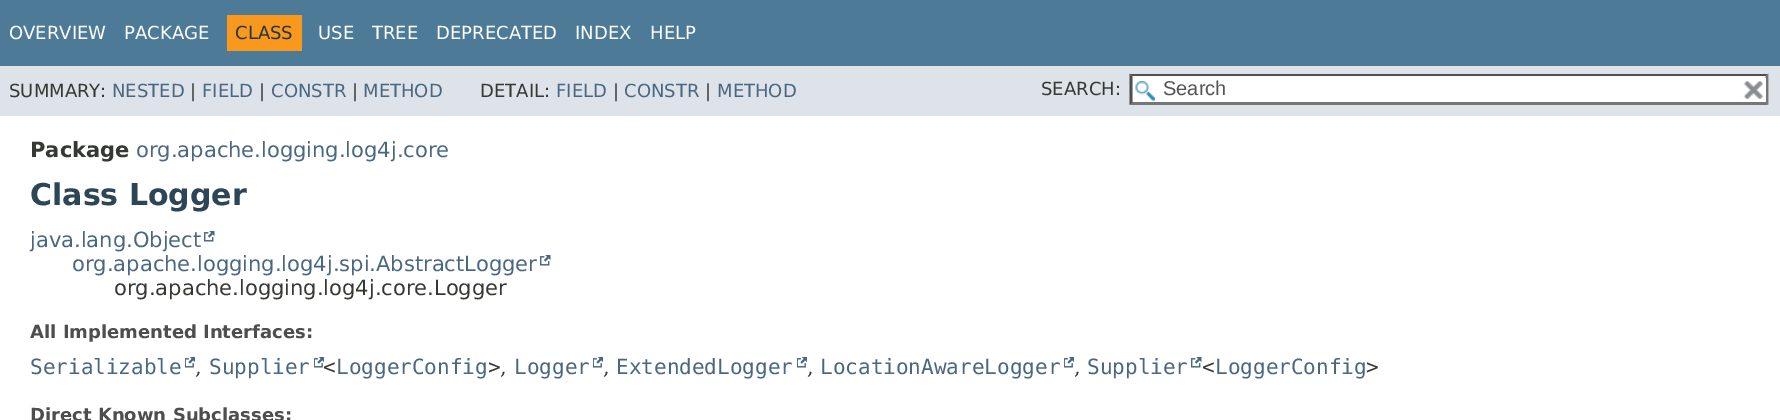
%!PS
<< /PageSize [1780 420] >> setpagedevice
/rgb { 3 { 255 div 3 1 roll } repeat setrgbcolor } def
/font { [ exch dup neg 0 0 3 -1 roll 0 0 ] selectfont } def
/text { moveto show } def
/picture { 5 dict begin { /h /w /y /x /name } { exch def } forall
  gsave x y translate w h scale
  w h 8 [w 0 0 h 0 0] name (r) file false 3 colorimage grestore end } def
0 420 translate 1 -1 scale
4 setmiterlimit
255 255 255 rgb
0 0 1780 420 rectfill
77 122 151 rgb
0 0 1780 66 rectfill
248 152 29 rgb
227 15 75 36 rectfill
222 227 233 rgb
0 66 1780 50 rectfill
255 255 255 rgb
1130 74 639 31 rectfill
(img_01.rgb) 1135 81 20 20 picture
79 79 79 rgb
1130 74 moveto 638 0 rlineto -2 2 rlineto -634 0 rlineto closepath fill
118 118 118 rgb
1768.5 73.5 moveto 0 31.5 rlineto -3 -3 rlineto 0 -25.5 rlineto closepath fill
1768 105 moveto -638 0 rlineto 2 -3 rlineto 634 0 rlineto closepath fill
79 79 79 rgb
1129.5 105 moveto 0 -31.5 rlineto 3 3 rlineto 0 25.5 rlineto closepath fill
255 255 255 rgb
1765 78 1 24 rectfill
(img_02.rgb) 1743 81 20 19 picture
(img_03.rgb) 204 231 11 11 picture
(img_03.rgb) 540 255 11 11 picture
(img_04.rgb) 185 357 10 11 picture
(img_04.rgb) 314 357 10 11 picture
(img_04.rgb) 593 357 10 11 picture
(img_04.rgb) 797 357 10 11 picture
(img_04.rgb) 1064 357 10 11 picture
(img_03.rgb) 1191 357 11 11 picture
/DejaVuSans-Regular 18 font
(OVERVIEW) 9 39 text
(PACKAGE) 124 39 text
37 52 65 rgb
(CLASS) 235 39 text
255 255 255 rgb
(USE) 318 39 text
(TREE) 372 39 text
(DEPRECATED) 436 39 text
(INDEX) 575 39 text
(HELP) 650 39 text
53 56 51 rgb
(SUMMARY:) 9 97 text
74 103 130 rgb
(NESTED) 112 97 text
53 56 51 rgb
(|) 190 97 text
74 103 130 rgb
(FIELD) 202 97 text
53 56 51 rgb
(|) 259 97 text
74 103 130 rgb
(CONSTR) 271 97 text
53 56 51 rgb
(|) 352 97 text
74 103 130 rgb
(METHOD) 363 97 text
53 56 51 rgb
(DETAIL:) 480 97 text
74 103 130 rgb
(FIELD) 556 97 text
53 56 51 rgb
(|) 613 97 text
74 103 130 rgb
(CONSTR) 624 97 text
53 56 51 rgb
(|) 705 97 text
74 103 130 rgb
(METHOD) 717 97 text
53 56 51 rgb
(SEARCH:) 1041 95 text
/LiberationSans-Regular 20 font
84 84 84 rgb
(Search) 1163 95 text
/DejaVuSans-Bold 21 font
53 56 51 rgb
(Package) 30 157 text
/DejaVuSans-Regular 21 font
74 103 130 rgb
(org.apache.logging.log4j.core) 136 157 text
/DejaVuSans-Bold 30 font
44 69 87 rgb
(Class Logger) 30 205 text
/DejaVuSans-Regular 21 font
74 103 130 rgb
(java.lang.Object) 30 247 text
(org.apache.logging.log4j.spi.AbstractLogger) 72 271 text
53 56 51 rgb
(org.apache.logging.log4j.core.Logger) 114 295 text
/DejaVuSans-Bold 18 font
78 78 78 rgb
(All Implemented Interfaces:) 30 338 text
/DejaVuSansMono-Regular 21 font
74 103 130 rgb
(Serializable) 30 374 text
/DejaVuSerif-Regular 21 font
53 56 51 rgb
(,) 195 374 text
/DejaVuSansMono-Regular 21 font
74 103 130 rgb
(Supplier) 209 374 text
53 56 51 rgb
(<) 323 374 text
74 103 130 rgb
(LoggerConfig) 336 374 text
53 56 51 rgb
(>) 488 374 text
/DejaVuSerif-Regular 21 font
(,) 500 374 text
/DejaVuSansMono-Regular 21 font
74 103 130 rgb
(Logger) 514 374 text
/DejaVuSerif-Regular 21 font
53 56 51 rgb
(,) 603 374 text
/DejaVuSansMono-Regular 21 font
74 103 130 rgb
(ExtendedLogger) 616 374 text
/DejaVuSerif-Regular 21 font
53 56 51 rgb
(,) 807 374 text
/DejaVuSansMono-Regular 21 font
74 103 130 rgb
(LocationAwareLogger) 820 374 text
/DejaVuSerif-Regular 21 font
53 56 51 rgb
(,) 1074 374 text
/DejaVuSansMono-Regular 21 font
74 103 130 rgb
(Supplier) 1087 374 text
53 56 51 rgb
(<) 1202 374 text
74 103 130 rgb
(LoggerConfig) 1215 374 text
53 56 51 rgb
(>) 1366 374 text
/DejaVuSans-Bold 18 font
78 78 78 rgb
(Direct Known Subclasses:) 30 421 text
showpage
